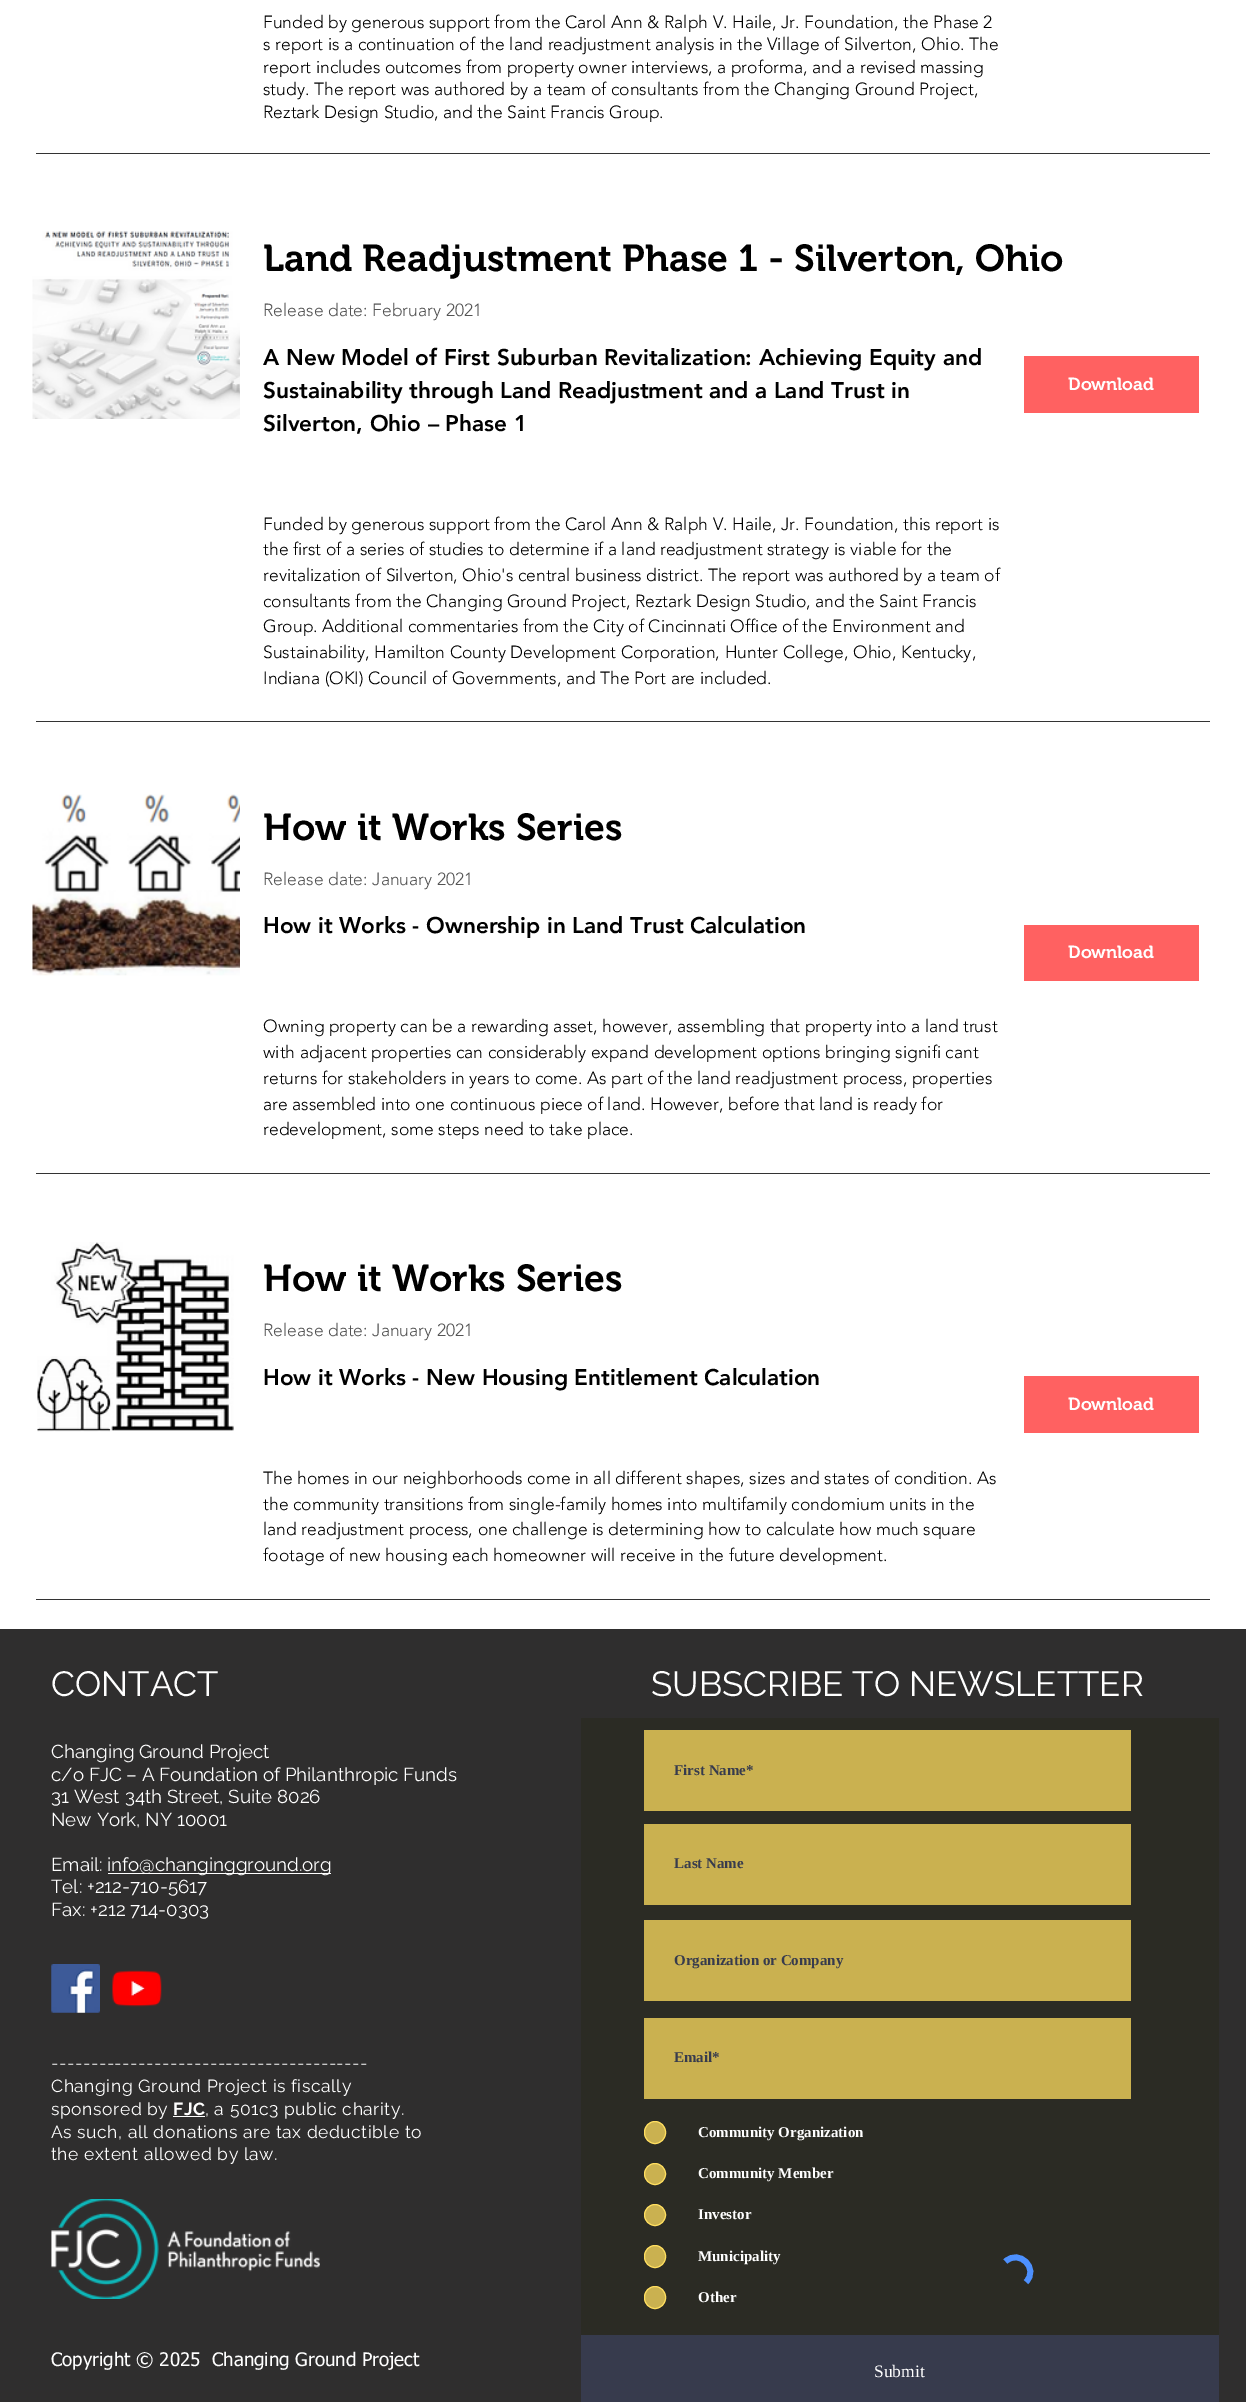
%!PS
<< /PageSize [1246 2402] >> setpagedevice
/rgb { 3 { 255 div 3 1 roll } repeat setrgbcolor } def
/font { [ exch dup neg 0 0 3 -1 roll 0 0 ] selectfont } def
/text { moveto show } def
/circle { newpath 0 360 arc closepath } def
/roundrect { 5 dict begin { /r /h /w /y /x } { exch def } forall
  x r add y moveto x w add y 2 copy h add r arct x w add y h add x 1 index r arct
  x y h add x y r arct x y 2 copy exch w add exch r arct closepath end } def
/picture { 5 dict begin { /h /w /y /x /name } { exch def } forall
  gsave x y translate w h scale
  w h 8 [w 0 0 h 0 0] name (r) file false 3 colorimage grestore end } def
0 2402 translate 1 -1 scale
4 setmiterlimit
255 255 255 rgb
0 0 1246 2402 rectfill
51 51 51 rgb
36 153 1174 1 rectfill
(img_01.rgb) 32 231 208 188 picture
255 97 97 rgb
1024 356 175 57 rectfill
51 51 51 rgb
36 721 1174 1 rectfill
(img_02.rgb) 32 794 208 182 picture
255 97 97 rgb
1024 925 175 56 rectfill
51 51 51 rgb
36 1173 1174 1 rectfill
(img_03.rgb) 37 1242 197 190 picture
255 97 97 rgb
1024 1376 175 57 rectfill
51 51 51 rgb
36 1599 1174 1 rectfill
47 46 46 rgb
0 1629 1246 773 rectfill
255 255 255 rgb
108 1873 223 1 rectfill
43 43 36 rgb
581 1718 638 617 rectfill
202 177 80 rgb
644 1730 487 81 rectfill
644 1824 487 81 rectfill
644 1920 487 81 rectfill
644 2018 487 81 rectfill
644.5 2121.5 21 22 10.5 roundrect gsave fill grestore
255 222 95 rgb
stroke
202 177 80 rgb
655 2174 10.5 circle gsave fill grestore
255 222 95 rgb
stroke
202 177 80 rgb
655 2215 10.5 circle gsave fill grestore
255 222 95 rgb
stroke
202 177 80 rgb
644.5 2245.5 21 22 10.5 roundrect gsave fill grestore
255 222 95 rgb
stroke
202 177 80 rgb
644.5 2286.5 21 22 10.5 roundrect gsave fill grestore
255 222 95 rgb
stroke
77 144 254 rgb
5.8 setlinewidth
1005.5 2261.5 moveto 13.5 -13 34 7 20.5 20.5 rcurveto stroke
55 59 77 rgb
581 2335 638 67 rectfill
(img_04.rgb) 51 1964 49 49 picture
(img_05.rgb) 112 1970 50 37 picture
255 255 255 rgb
173 2116 32 1 rectfill
(img_06.rgb) 51 2199 269 100 picture
/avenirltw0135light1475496-Light 17.5 font
0 0 0 rgb
(Funded by generous support from the Carol Ann & Ralph V. Haile, Jr. Foundation, the Phase 2) 263 28 text
(s report is a continuation of the land readjustment analysis in the Village of Silverton, Ohio. The) 263 50 text
(report includes outcomes from property owner interviews, a proforma, and a revised massing) 263 73 text
(study. The report was authored by a team of consultants from the Changing Ground Project,) 263 95 text
(Reztark Design Studio, and the Saint Francis Group.) 263 118 text
/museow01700-SemiBold 37.5 font
(Land Readjustment Phase 1 - Silverton, Ohio) 263 271 text
/avenirltw0135light1475496-Light 17.5 font
84 84 84 rgb
(Release date: February 2021) 263 316 text
/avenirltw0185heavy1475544-Black 22.5 font
0 0 0 rgb
(A New Model of First Suburban Revitalization: Achieving Equity and) 263 365 text
(Sustainability through Land Readjustment and a Land Trust in) 263 398 text
(Silverton, Ohio – Phase 1) 263 431 text
/museow01700-SemiBold 17.5 font
255 255 255 rgb
(Download) 1068 390 text
/avenirltw0135light1475496-Light 17.5 font
0 0 0 rgb
(Funded by generous support from the Carol Ann & Ralph V. Haile, Jr. Foundation, this report is) 263 530 text
(the first of a series of studies to determine if a land readjustment strategy is viable for the) 263 555 text
(revitalization of Silverton, Ohio's central business district. The report was authored by a team of) 263 581 text
(consultants from the Changing Ground Project, Reztark Design Studio, and the Saint Francis) 263 607 text
(Group. Additional commentaries from the City of Cincinnati Office of the Environment and) 263 632 text
(Sustainability, Hamilton County Development Corporation, Hunter College, Ohio, Kentucky,) 263 658 text
(Indiana \(OKI\) Council of Governments, and The Port are included.) 263 684 text
/museow01700-SemiBold 37.5 font
(How it Works Series) 263 840 text
/avenirltw0135light1475496-Light 17.5 font
84 84 84 rgb
(Release date: January 2021) 263 885 text
/avenirltw0185heavy1475544-Black 22.5 font
0 0 0 rgb
(How it Works - Ownership in Land Trust Calculation) 263 933 text
/museow01700-SemiBold 17.5 font
255 255 255 rgb
(Download) 1068 958 text
/avenirltw0135light1475496-Light 17.5 font
0 0 0 rgb
(Owning property can be a rewarding asset, however, assembling that property into a land trust) 263 1032 text
(with adjacent properties can considerably expand development options bringing signifi cant) 263 1058 text
(returns for stakeholders in years to come. As part of the land readjustment process, properties) 263 1084 text
(are assembled into one continuous piece of land. However, before that land is ready for) 263 1110 text
(redevelopment, some steps need to take place.) 263 1135 text
/museow01700-SemiBold 37.5 font
(How it Works Series) 263 1291 text
/avenirltw0135light1475496-Light 17.5 font
84 84 84 rgb
(Release date: January 2021) 263 1336 text
/avenirltw0185heavy1475544-Black 22.5 font
0 0 0 rgb
(How it Works - New Housing Entitlement Calculation) 263 1385 text
/museow01700-SemiBold 17.5 font
255 255 255 rgb
(Download) 1068 1410 text
/avenirltw0135light1475496-Light 17.5 font
0 0 0 rgb
(The homes in our neighborhoods come in all different shapes, sizes and states of condition. As) 263 1484 text
(the community transitions from single-family homes into multifamily condomium units in the) 263 1510 text
(land readjustment process, one challenge is determining how to calculate how much square) 263 1535 text
(footage of new housing each homeowner will receive in the future development.) 263 1561 text
/Raleway-Regular 35 font
255 255 255 rgb
(CONTACT) 51 1696 text
(SUBSCRIBE TO NEWSLETTER) 651 1696 text
/Raleway-Regular 18.75 font
(Changing Ground Project) 51 1758 text
(c/o FJC – A Foundation of Philanthropic Funds) 51 1781 text
(31 West 34th Street, Suite 8026) 51 1803 text
(New York, NY 10001) 51 1826 text
(Email:) 51 1871 text
(info@changingground.org) 107 1871 text
(Tel: +212-710-5617) 51 1893 text
(Fax: +212 714-0303) 51 1916 text
/LiberationSerif-Bold 15 font
55 59 77 rgb
(First Name*) 674 1775 text
(Last Name) 674 1868 text
(Organization or Company) 674 1965 text
(Email*) 674 2062 text
255 255 255 rgb
(Community Organization) 698 2137 text
(Community Member) 698 2178 text
(Investor) 698 2219 text
(Municipality) 698 2261 text
(Other) 698 2302 text
/LiberationSerif-Regular 17.5 font
(Submit) 874 2377 text
/Raleway-Regular 17.5 font
51 2069 moveto 0.55 0 (----------------------------------------) ashow
51 2092 moveto 0.55 0 (Changing Ground Project is fiscally) ashow
51 2115 moveto 0.55 0 (sponsored by) ashow
/Raleway-Bold 17.5 font
173 2115 moveto 0.55 0 (FJC) ashow
/Raleway-Regular 17.5 font
205 2115 moveto 0.55 0 (, a 501c3 public charity.) ashow
51 2138 moveto 0.55 0 (As such, all donations are tax deductible to) ashow
51 2160 moveto 0.55 0 (the extent allowed by law.) ashow
/tahoma-Regular 18.75 font
(Copyright © 2025  Changing Ground Project) 51 2366 text
showpage
